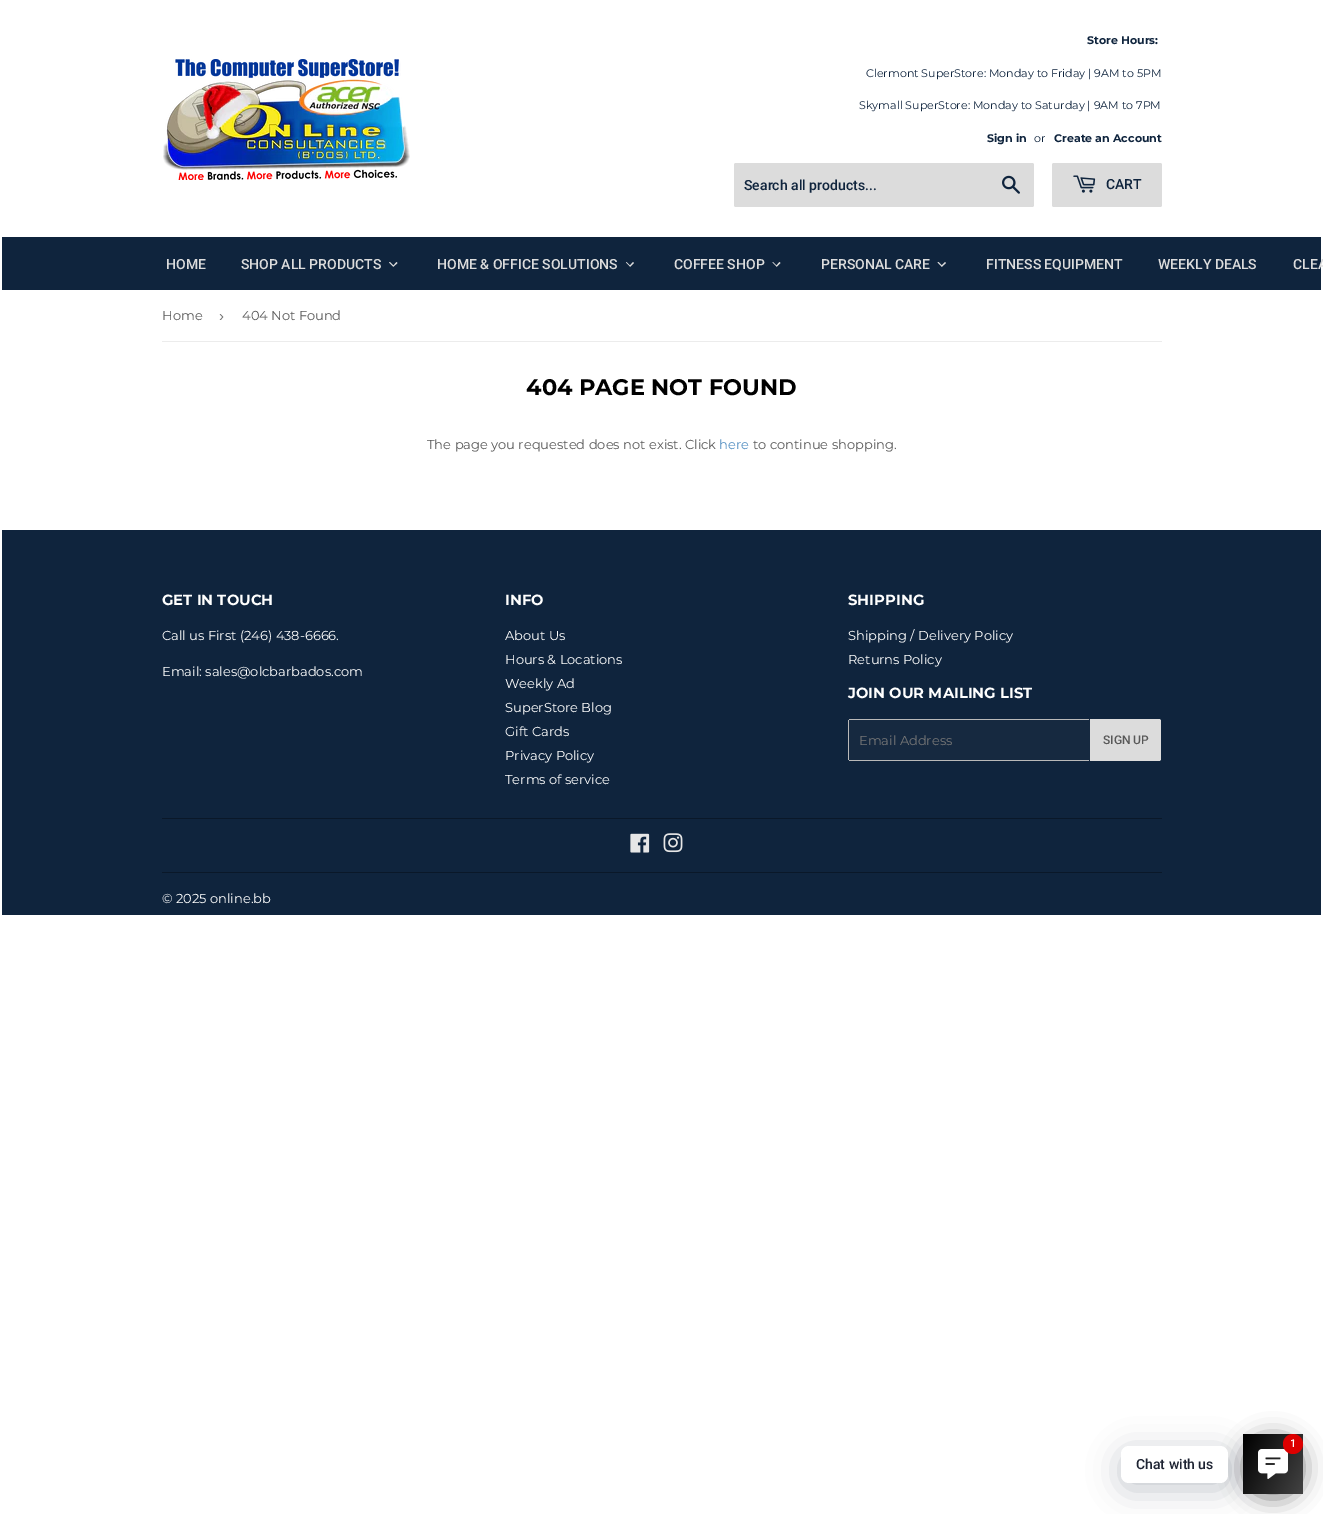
%!PS
<< /PageSize [1323 1514] /PageUsesTransparency true >> setpagedevice
/rgb { 3 { 255 div 3 1 roll } repeat setrgbcolor } def
/font { [ exch dup neg 0 0 3 -1 roll 0 0 ] selectfont } def
/text { moveto show } def
/alpha { dup .setfillconstantalpha .setstrokeconstantalpha } def
/circle { newpath 0 360 arc closepath } def
/roundrect { 5 dict begin { /r /h /w /y /x } { exch def } forall
  x r add y moveto x w add y 2 copy h add r arct x w add y h add x 1 index r arct
  x y h add x y r arct x y 2 copy exch w add exch r arct closepath end } def
/shadow { 12 dict begin { /a /b /q /h /w /y /x } { exch def } forall gsave /was 0 def
  9 -2 -9 { dup b mul 4 div /e exch def 1 sub .425 mul 2.718 exch exp 1 add a .99 .min exch div /now exch def
    1 1 now sub 1 was sub div sub alpha /was now def
    w h .min e 2 mul add 0 gt { x e sub y e sub w e 2 mul add h e 2 mul add
      q e add b .6 mul add w h .min 2 div e add .min 0 .max roundrect fill } if } for grestore end } def
/picture { 5 dict begin { /h /w /y /x /name } { exch def } forall
  gsave x y translate w h scale
  w h 8 [w 0 0 h 0 0] name (r) file false 3 colorimage grestore end } def
0 .pushpdf14devicefilter
0 1514 translate 1 -1 scale
4 setmiterlimit
255 255 255 rgb
0 0 1323 1514 rectfill
(img_01.rgb) 163 59 247 121 picture
220 220 220 rgb
734 163 300 44 2 roundrect fill
(img_02.rgb) 1002 175 18 19 picture
1052 163 110 44 2 roundrect fill
(img_03.rgb) 1073 175 23 18 picture
15 36 61 rgb
2 237 1319 53 rectfill
220 220 220 rgb
396.5 262 moveto 1 1 rlineto -4 3.5 rlineto -0.5 -0.5 rlineto closepath fill
390 262 moveto 4 4 rlineto -1 0.5 rlineto -4 -4 rlineto closepath fill
633 262 moveto 1 1 rlineto -3.5 3.5 rlineto -1 -0.5 rlineto closepath fill
626.5 262 moveto 4 4 rlineto -0.5 0.5 rlineto -4 -4 rlineto closepath fill
779.5 262 moveto 1 1 rlineto -3.5 3.5 rlineto -1 -0.5 rlineto closepath fill
773 262 moveto 4 4 rlineto -0.5 0.5 rlineto -4 -4 rlineto closepath fill
945 262 moveto 1 1 rlineto -4 3.5 rlineto -1 -0.5 rlineto closepath fill
938.5 262 moveto 4 4 rlineto -1 0.5 rlineto -4 -4 rlineto closepath fill
236 236 236 rgb
162 341 1000 1 rectfill
15 36 61 rgb
2 530 1319 385 rectfill
22 41 64 rgb
848 719 242 42 2 roundrect fill
185 185 185 rgb
849 719 240 1 rectfill
849 760 240 1 rectfill
848 720 1 40 rectfill
220 220 220 rgb
1090 719 moveto 69 0 rlineto 1 0 2 1 2 2 rcurveto 0 38 rlineto 0 1 -1 2 -2 2 rcurveto -69 0 rlineto closepath fill
10 24 41 rgb
162 818 1000 1 rectfill
(img_04.rgb) 630 833 20 20 picture
(img_05.rgb) 663 833 20 20 picture
162 872 1000 1 rectfill
0 0 0 rgb
1243 1438 60 60 30 12 0.5 shadow
gsave 1243 1434 moveto 60 0 rlineto 0 60 rlineto -60 0 rlineto closepath clip newpath
<< /ShadingType 2 /ColorSpace /DeviceRGB /Coords [1237 1447 1309 1481] /Extend [true true] /Function << /FunctionType 2 /Domain [0 1] /C0 [0 0 0] /C1 [0.263 0.263 0.263] /N 1 >> >> shfill grestore
0 18 46 rgb
1121 1452 107 37 8 16 0.24 shadow
(img_06.rgb) 1258 1449 30 30 picture
221 0 0 rgb
1293 1444 10 circle fill
255 255 255 rgb
1121 1446 107 37 8 roundrect fill
/Montserrat-Bold 11.05 font
15 36 61 rgb
(Store Hours:) 1087 44 text
/Montserrat-Regular 11.05 font
(Clermont SuperStore: Monday to Friday | 9AM to 5PM) 866 77 text
(Skymall SuperStore: Monday to Saturday | 9AM to 7PM) 859 109 text
/Montserrat-Bold 11.05 font
(Sign in) 987 142 text
/Montserrat-Regular 11.05 font
(or) 1034 142 text
/Montserrat-Bold 11.05 font
(Create an Account) 1054 142 text
/Roboto-Medium 14 font
(Search all products...) 744 190 text
(CART) 1106 189 text
220 220 220 rgb
(HOME) 166 269 text
(SHOP ALL PRODUCTS) 241 269 text
(HOME & OFFICE SOLUTIONS) 437 269 text
(COFFEE SHOP) 674 269 text
(PERSONAL CARE) 821 269 text
(FITNESS EQUIPMENT) 986 269 text
(WEEKLY DEALS) 1158 269 text
(CLEA) 1293 269 text
/Montserrat-Regular 13 font
88 88 88 rgb
(Home) 162 320 text
/LiberationSans-Regular 15 font
118 118 118 rgb
(›) 219 321 text
/Montserrat-Regular 13 font
88 88 88 rgb
(404 Not Found) 242 320 text
/Montserrat-Bold 22.5 font
0 0 0 rgb
(404 PAGE NOT FOUND) 526 395 text
/Montserrat-Regular 13 font
88 88 88 rgb
(The page you requested does not exist. Click) 427 449 text
82 142 193 rgb
(here) 719 449 text
88 88 88 rgb
(to continue shopping.) 753 449 text
/Montserrat-Bold 14.75 font
255 255 255 rgb
(GET IN TOUCH) 162 605 text
/Montserrat-Regular 13 font
(Call us First \(246\) 438-6666.) 162 640 text
(Email: sales@olcbarbados.com) 162 676 text
/Montserrat-Bold 14.75 font
(INFO) 505 605 text
/Montserrat-Regular 13 font
(About Us) 505 640 text
(Hours & Locations) 505 664 text
(Weekly Ad) 505 688 text
(SuperStore Blog) 505 712 text
(Gift Cards) 505 736 text
(Privacy Policy) 505 760 text
(Terms of service) 505 784 text
/Montserrat-Bold 14.75 font
(SHIPPING) 848 605 text
/Montserrat-Regular 13 font
(Shipping / Delivery Policy) 848 640 text
(Returns Policy) 848 664 text
/Montserrat-Bold 14.75 font
(JOIN OUR MAILING LIST) 848 698 text
/Montserrat-Regular 13 font
118 118 118 rgb
(Email Address) 859 745 text
/Roboto-Medium 12 font
88 88 88 rgb
(SIGN UP) 1103 744 text
/Montserrat-Regular 13 font
255 255 255 rgb
(© 2025 online.bb) 162 903 text
/Roboto-Medium 11 font
(1) 1290 1447 text
/Roboto-Medium 14 font
30 36 51 rgb
(Chat with us) 1136 1469 text
.poppdf14devicefilter showpage
